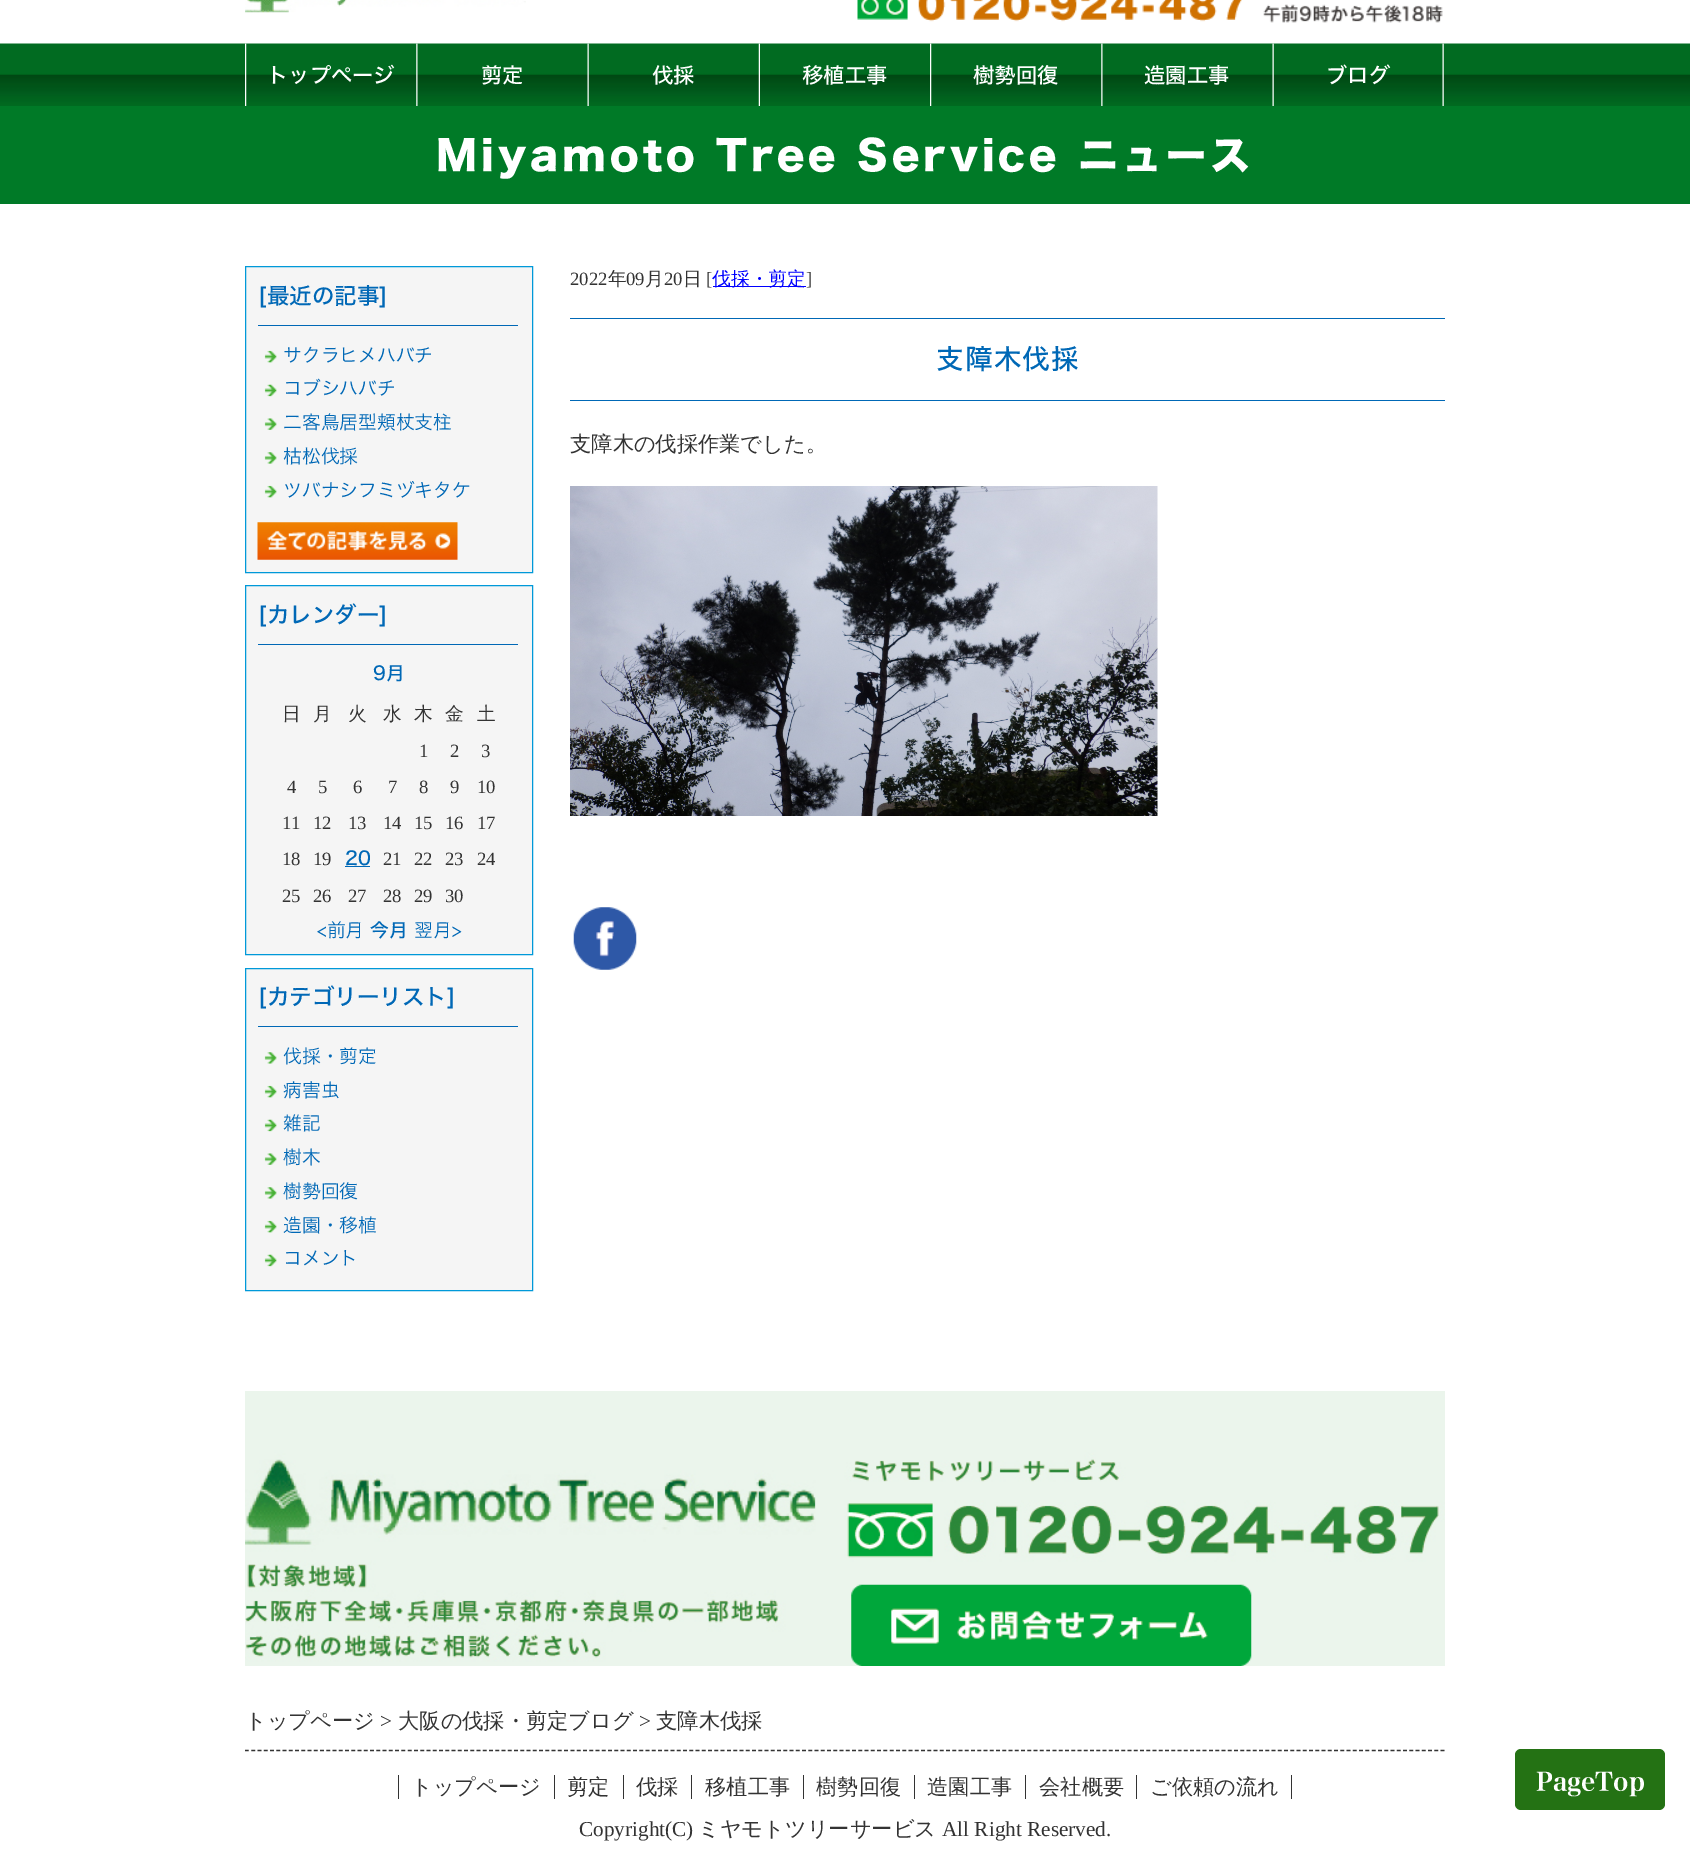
%!PS
<< /PageSize [1690 1860] >> setpagedevice
/rgb { 3 { 255 div 3 1 roll } repeat setrgbcolor } def
/font { [ exch dup neg 0 0 3 -1 roll 0 0 ] selectfont } def
/text { moveto show } def
/roundrect { 5 dict begin { /r /h /w /y /x } { exch def } forall
  x r add y moveto x w add y 2 copy h add r arct x w add y h add x 1 index r arct
  x y h add x y r arct x y 2 copy exch w add exch r arct closepath end } def
/picture { 5 dict begin { /h /w /y /x /name } { exch def } forall
  gsave x y translate w h scale
  w h 8 [w 0 0 h 0 0] name (r) file false 3 colorimage grestore end } def
0 1860 translate 1 -1 scale
4 setmiterlimit
255 255 255 rgb
0 0 1690 1860 rectfill
(img_01.rgb) 857 0 586 23 picture
(img_02.rgb) 245 0 281 13 picture
(img_03.rgb) 0 43 1690 63 picture
(img_04.rgb) 245 43 2 63 picture
(img_05.rgb) 416 43 2 63 picture
(img_06.rgb) 587 43 2 63 picture
(img_07.rgb) 758 43 2 63 picture
(img_08.rgb) 930 43 2 63 picture
(img_05.rgb) 1101 43 2 63 picture
(img_09.rgb) 1272 43 172 63 picture
0 122 39 rgb
0 106 1690 98 rectfill
245 245 245 rgb
245.5 266.5 moveto 287 0 rlineto 0 306 rlineto -287 0 rlineto closepath gsave fill grestore
0 153 217 rgb
stroke
0 104 182 rgb
258 325 260 1 rectfill
(img_10.rgb) 264 350 13 13 picture
(img_11.rgb) 264 384 13 13 picture
(img_12.rgb) 264 418 13 12 picture
(img_13.rgb) 264 452 13 12 picture
(img_10.rgb) 264 485 13 13 picture
(img_14.rgb) 257 522 201 38 picture
245 245 245 rgb
245.5 585.5 moveto 287 0 rlineto 0 369 rlineto -287 0 rlineto closepath gsave fill grestore
0 153 217 rgb
stroke
0 104 182 rgb
258 644 260 1 rectfill
345 866 25 1 rectfill
245 245 245 rgb
245.5 968.5 moveto 287 0 rlineto 0 322 rlineto -287 0 rlineto closepath gsave fill grestore
0 153 217 rgb
stroke
0 104 182 rgb
258 1026 260 1 rectfill
(img_15.rgb) 264 1052 13 12 picture
(img_10.rgb) 264 1085 13 13 picture
(img_11.rgb) 264 1119 13 13 picture
(img_12.rgb) 264 1153 13 12 picture
(img_15.rgb) 264 1187 13 12 picture
(img_10.rgb) 264 1220 13 13 picture
(img_11.rgb) 264 1254 13 13 picture
0 0 255 rgb
713 286 93 1 rectfill
0 104 182 rgb
570 318 875 1 rectfill
570 400 875 1 rectfill
(img_16.rgb) 570 486 588 330 picture
(img_17.rgb) 573 907 64 63 picture
(img_18.rgb) 245 1391 1200 275 picture
(img_19.rgb) 851 1584 401 82 picture
51 51 51 rgb
1.2 setlinewidth
[3.75 2.51] 0 setdash
245 1750.5 moveto 1200 0 rlineto stroke
398 1775 1 24 rectfill
554 1775 1 24 rectfill
623 1775 1 24 rectfill
691 1775 1 24 rectfill
803 1775 1 24 rectfill
914 1775 1 24 rectfill
1025 1775 1 24 rectfill
1291 1775 1 24 rectfill
1136 1775 1 24 rectfill
36 114 20 rgb
1515 1749 150 61 6 roundrect fill
/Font-Medium 21.25 font
255 255 255 rgb
(トップページ) 267 83 text
(剪定) 481 83 text
(伐採) 652 83 text
(移植工事) 802 83 text
(樹勢回復) 973 83 text
(造園工事) 1144 83 text
(ブログ) 1326 83 text
/Font-ExtraBold 40 font
436 170 moveto 4 0 (Miyamoto Tree Service ニュース) ashow
/Font-Medium 22.5 font
0 104 182 rgb
([最近の記事]) 258 304 text
/Font-Light 18.75 font
(サクラヒメハバチ) 283 362 text
(コブシハバチ) 283 395 text
(二客鳥居型頬杖支柱) 283 429 text
(枯松伐採) 283 463 text
(ツバナシフミヅキタケ) 283 497 text
/Font-Medium 22.5 font
([カレンダー]) 258 623 text
/Font-Medium 18.75 font
(9月) 373 680 text
/WenQuanYiZenHei-Medium 18.75 font
51 51 51 rgb
(日) 282 720 text
(月) 313 720 text
(火) 348 720 text
(水) 383 720 text
(木) 414 720 text
(金) 445 720 text
(土) 477 720 text
/LiberationSerif-Regular 18.75 font
(1) 419 757 text
(2) 450 757 text
(3) 481 757 text
(4) 287 793 text
(5) 318 793 text
(6) 353 793 text
(7) 388 793 text
(8) 419 793 text
(9) 450 793 text
(10) 477 793 text
(11) 282 829 text
(12) 313 829 text
(13) 348 829 text
(14) 383 829 text
(15) 414 829 text
(16) 445 829 text
(17) 477 829 text
(18) 282 865 text
(19) 313 865 text
/Font-Medium 18.75 font
0 104 182 rgb
(20) 345 865 text
/LiberationSerif-Regular 18.75 font
51 51 51 rgb
(21) 383 865 text
(22) 414 865 text
(23) 445 865 text
(24) 477 865 text
(25) 282 902 text
(26) 313 902 text
(27) 348 902 text
(28) 383 902 text
(29) 414 902 text
(30) 445 902 text
/Font-Light 18.75 font
0 104 182 rgb
(<前月) 317 937 text
/Font-Medium 18.75 font
(今月) 370 937 text
/Font-Light 18.75 font
(翌月>) 414 937 text
/Font-Medium 22.5 font
([カテゴリーリスト]) 258 1005 text
/Font-Light 18.75 font
(伐採・剪定) 283 1063 text
(病害虫) 283 1097 text
(雑記) 283 1130 text
(樹木) 283 1164 text
(樹勢回復) 283 1198 text
(造園・移植) 283 1232 text
(コメント) 283 1265 text
/LiberationSerif-Regular 18.75 font
51 51 51 rgb
(2022) 570 285 text
/WenQuanYiZenHei-Medium 18.75 font
(年) 608 285 text
/LiberationSerif-Regular 18.75 font
(09) 626 285 text
/WenQuanYiZenHei-Medium 18.75 font
(月) 645 285 text
/LiberationSerif-Regular 18.75 font
(20) 664 285 text
/WenQuanYiZenHei-Medium 18.75 font
(日) 683 285 text
/LiberationSerif-Regular 18.75 font
([) 706 285 text
/WenQuanYiZenHei-Medium 18.75 font
0 0 255 rgb
(伐採・剪定) 712 285 text
/LiberationSerif-Regular 18.75 font
51 51 51 rgb
(]) 806 285 text
/Font-Medium 27.5 font
0 104 182 rgb
936 369 moveto 1.25 0 (支障木伐採) ashow
/WenQuanYiZenHei-Medium 21.25 font
51 51 51 rgb
(支障木の伐採作業でした。) 570 451 text
(トップページ) 245 1728 text
/LiberationSerif-Regular 21.25 font
(>) 380 1728 text
/WenQuanYiZenHei-Medium 21.25 font
(大阪の伐採・剪定ブログ) 398 1728 text
/LiberationSerif-Regular 21.25 font
(>) 639 1728 text
/WenQuanYiZenHei-Medium 21.25 font
(支障木伐採) 656 1728 text
(トップページ) 411 1794 text
(剪定) 567 1794 text
(伐採) 636 1794 text
(移植工事) 705 1794 text
(樹勢回復) 816 1794 text
(造園工事) 927 1794 text
(会社概要) 1039 1794 text
(ご依頼の流れ) 1150 1794 text
/LiberationSerif-Regular 21.25 font
(Copyright\(C\)) 579 1836 text
/WenQuanYiZenHei-Medium 21.25 font
(ミヤモトツリーサービス) 698 1836 text
/LiberationSerif-Regular 21.25 font
(All Right Reserved.) 942 1836 text
/Font-Bold 25 font
255 255 255 rgb
(PageTop) 1536 1791 text
showpage
